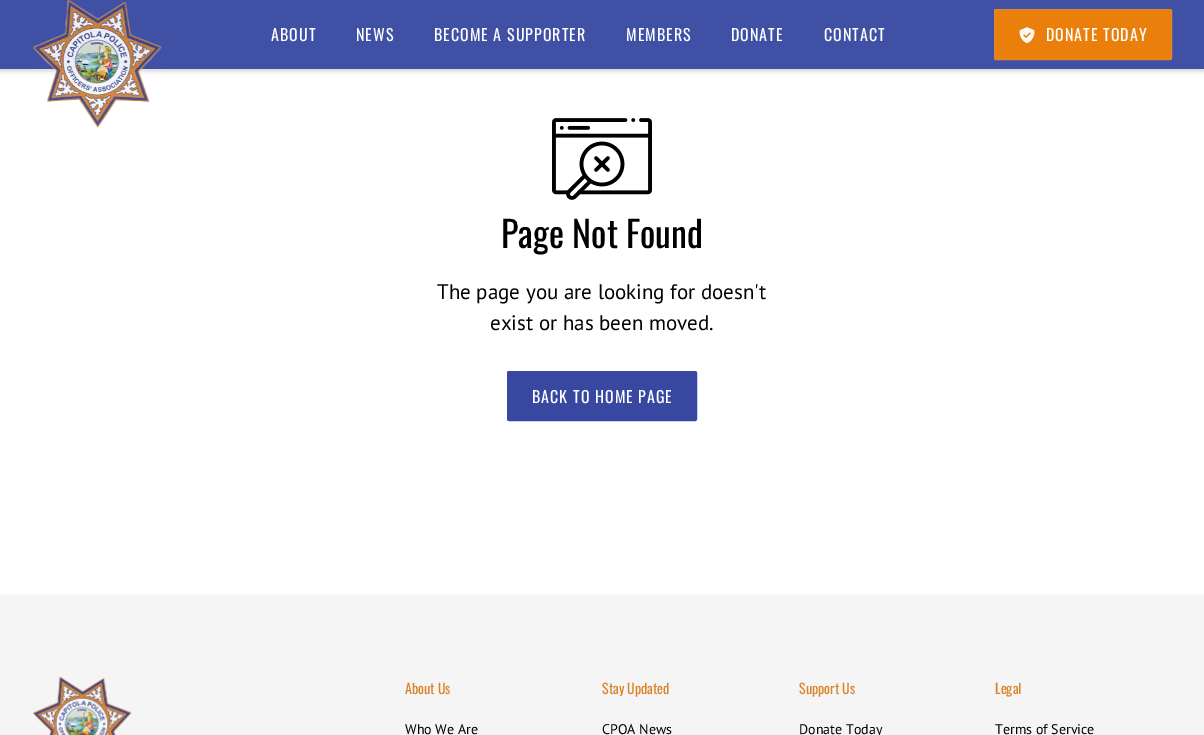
%!PS
<< /PageSize [1204 735] /PageUsesTransparency true >> setpagedevice
/rgb { 3 { 255 div 3 1 roll } repeat setrgbcolor } def
/font { [ exch dup neg 0 0 3 -1 roll 0 0 ] selectfont } def
/text { moveto show } def
/alpha { dup .setfillconstantalpha .setstrokeconstantalpha } def
/roundrect { 5 dict begin { /r /h /w /y /x } { exch def } forall
  x r add y moveto x w add y 2 copy h add r arct x w add y h add x 1 index r arct
  x y h add x y r arct x y 2 copy exch w add exch r arct closepath end } def
/shadow { 12 dict begin { /a /b /q /h /w /y /x } { exch def } forall gsave /was 0 def
  9 -2 -9 { dup b mul 4 div /e exch def 1 sub .425 mul 2.718 exch exp 1 add a .99 .min exch div /now exch def
    1 1 now sub 1 was sub div sub alpha /was now def
    w h .min e 2 mul add 0 gt { x e sub y e sub w e 2 mul add h e 2 mul add
      q e add b .6 mul add w h .min 2 div e add .min 0 .max roundrect fill } if } for grestore end } def
/picture { 5 dict begin { /h /w /y /x /name } { exch def } forall
  gsave x y translate w h scale
  w h 8 [w 0 0 h 0 0] name (r) file false 3 colorimage grestore end } def
0 .pushpdf14devicefilter
0 735 translate 1 -1 scale
4 setmiterlimit
255 255 255 rgb
0 0 1204 735 rectfill
11 11 11 rgb
0 1 1204 70 0 2.5 0.2 shadow
64 80 165 rgb
0 0 1204 69 rectfill
(img_01.rgb) 32 0 130 128 picture
234 127 11 rgb
994.5 9.5 177 50 1.5 roundrect gsave fill grestore
219 137 49 rgb
stroke
(img_02.rgb) 1019 27 16 16 picture
(img_03.rgb) 552 118 100 82 picture
56 72 161 rgb
507.5 371.5 189 49 1.5 roundrect gsave fill grestore
stroke
0 0 0 rgb
0 598 1204 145 0 2.5 0.2 shadow
245 245 245 rgb
0 596 1204 139 rectfill
(img_04.rgb) 32 676 100 59 picture
/Oswald-Regular 16 font
255 255 255 rgb
271 41 moveto 1 0 (ABOUT) ashow
356 41 moveto 1 0 (NEWS) ashow
434 41 moveto 1 0 (BECOME A SUPPORTER) ashow
626 41 moveto 1 0 (MEMBERS) ashow
731 41 moveto 1 0 (DONATE) ashow
824 41 moveto 1 0 (CONTACT) ashow
1046 41 moveto 1 0 (DONATE TODAY) ashow
/Oswald-Regular 36 font
0 0 0 rgb
(Page Not Found) 501 248 text
/PTSans-Regular 21 font
(The page you are looking for doesn't) 437 299 text
(exist or has been moved.) 490 330 text
/Oswald-Regular 16 font
255 255 255 rgb
532 403 moveto 1 0 (BACK TO HOME PAGE) ashow
/Oswald-Regular 14 font
217 132 40 rgb
(About Us) 405 694 text
/PTSans-Regular 14 font
0 0 0 rgb
(Who We Are) 405 734 text
/Oswald-Regular 14 font
217 132 40 rgb
(Stay Updated) 602 694 text
/PTSans-Regular 14 font
0 0 0 rgb
(CPOA News) 602 734 text
/Oswald-Regular 14 font
217 132 40 rgb
(Support Us) 799 694 text
/PTSans-Regular 14 font
0 0 0 rgb
(Donate Today) 799 734 text
/Oswald-Regular 14 font
217 132 40 rgb
(Legal) 995 694 text
/PTSans-Regular 14 font
0 0 0 rgb
(Terms of Service) 995 734 text
.poppdf14devicefilter showpage
